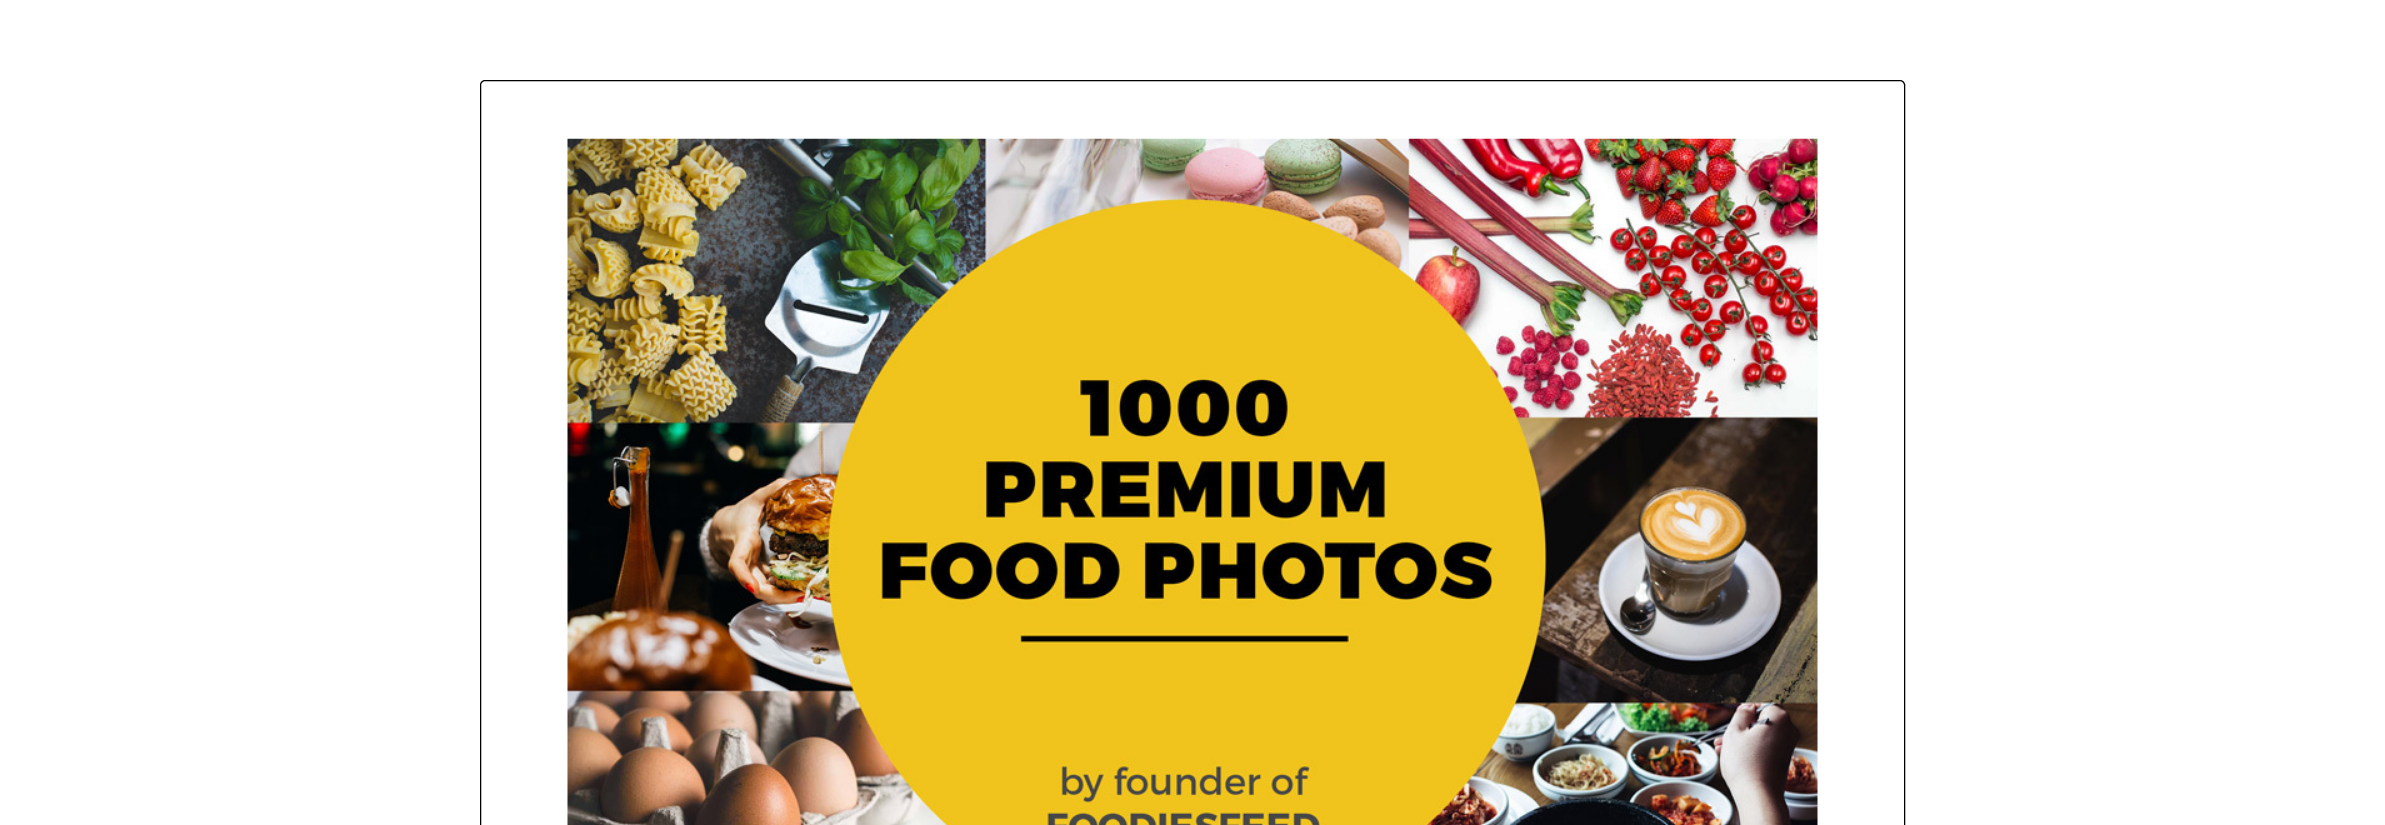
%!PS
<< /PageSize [2385 825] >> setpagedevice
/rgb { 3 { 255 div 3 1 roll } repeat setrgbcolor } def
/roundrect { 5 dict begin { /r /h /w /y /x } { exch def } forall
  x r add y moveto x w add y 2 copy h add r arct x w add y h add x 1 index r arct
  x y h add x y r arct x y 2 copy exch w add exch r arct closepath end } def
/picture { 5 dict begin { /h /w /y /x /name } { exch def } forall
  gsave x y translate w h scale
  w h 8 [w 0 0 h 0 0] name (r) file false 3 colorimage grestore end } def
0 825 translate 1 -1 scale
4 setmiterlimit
255 255 255 rgb
0 0 2385 825 rectfill
0 0 0 rgb
480.5 80.5 1424 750 4.5 roundrect stroke
(img_01.rgb) 567 138 1251 687 picture
showpage
